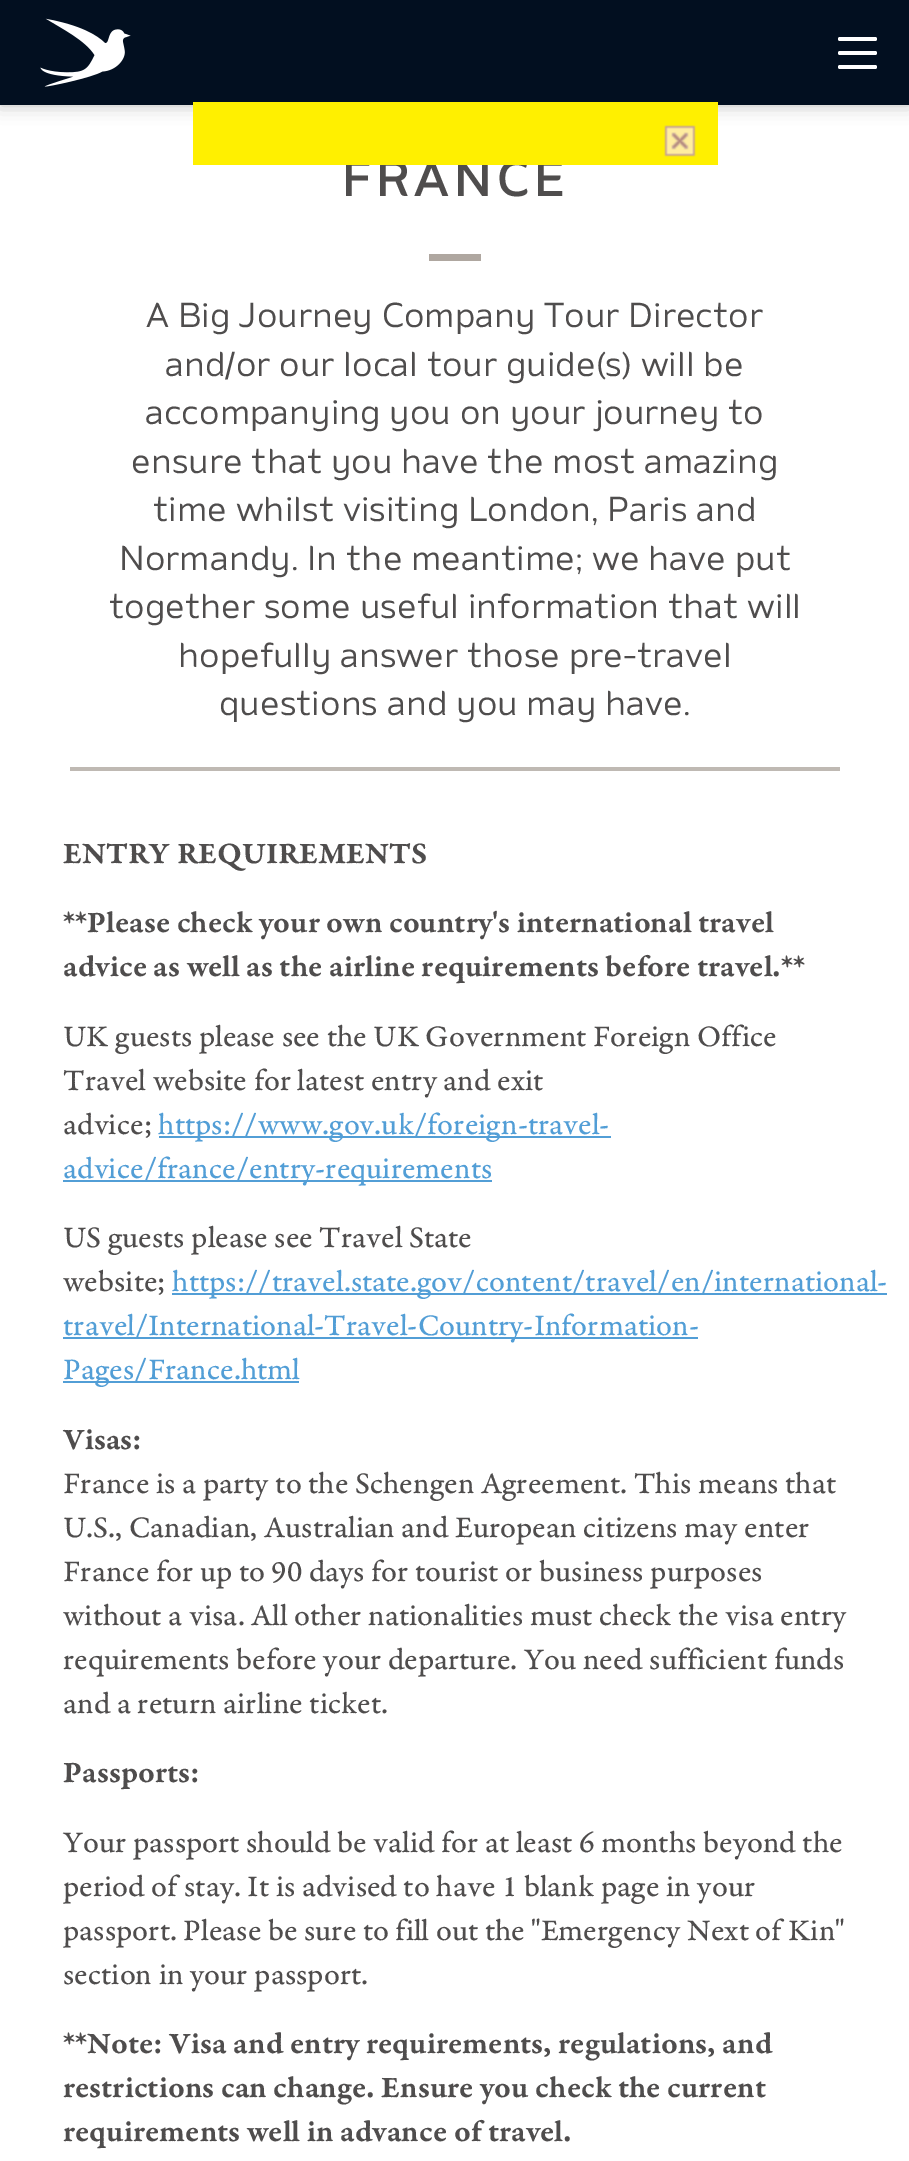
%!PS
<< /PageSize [909 2161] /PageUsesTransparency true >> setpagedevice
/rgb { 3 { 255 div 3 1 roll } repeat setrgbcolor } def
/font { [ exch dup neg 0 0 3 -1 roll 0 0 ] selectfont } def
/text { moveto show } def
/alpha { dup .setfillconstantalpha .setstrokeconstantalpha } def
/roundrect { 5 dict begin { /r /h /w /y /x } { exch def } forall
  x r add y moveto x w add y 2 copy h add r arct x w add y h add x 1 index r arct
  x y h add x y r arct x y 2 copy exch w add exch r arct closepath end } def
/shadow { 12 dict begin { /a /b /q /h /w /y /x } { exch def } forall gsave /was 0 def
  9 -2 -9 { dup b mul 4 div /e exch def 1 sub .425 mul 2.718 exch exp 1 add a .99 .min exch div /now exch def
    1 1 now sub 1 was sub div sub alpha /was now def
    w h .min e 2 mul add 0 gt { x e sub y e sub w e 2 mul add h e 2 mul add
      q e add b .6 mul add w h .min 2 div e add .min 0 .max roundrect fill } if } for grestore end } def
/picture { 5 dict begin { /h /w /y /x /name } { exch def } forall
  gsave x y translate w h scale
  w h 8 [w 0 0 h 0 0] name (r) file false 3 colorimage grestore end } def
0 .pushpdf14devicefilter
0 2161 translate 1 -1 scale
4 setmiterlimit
255 255 255 rgb
0 0 909 2161 rectfill
35 33 32 rgb
0 0 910 105 0 9 0.3 shadow
2 15 32 rgb
0 0 909 105 rectfill
(img_02.rgb) 40 18 91 69 picture
255 255 255 rgb
838 51 39 4 2 roundrect fill
838 37 39 4 2 roundrect fill
838 65 39 4 2 roundrect fill
175 167 160 rgb
429 254 52 7 rectfill
191 185 179 rgb
70 767 770 4 rectfill
82 158 214 rgb
159 1136 452 2 rectfill
63 1180 429 2 rectfill
172 1293 715 2 rectfill
63 1337 635 2 rectfill
63 1381 236 2 rectfill
/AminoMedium-Regular 50.5 font
79 77 77 rgb
342 196 moveto 5 0 (FRANCE) ashow
255 240 0 rgb
193 102 525 63 rectfill
(img_01.rgb) 664 125 32 32 picture
/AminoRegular-Regular 34.6 font
79 77 77 rgb
(A Big Journey Company Tour Director) 146 327 text
(and/or our local tour guide\(s\) will be) 165 376 text
(accompanying you on your journey to) 145 424 text
(ensure that you have the most amazing) 131 473 text
(time whilst visiting London, Paris and) 153 521 text
(Normandy. In the meantime; we have put) 119 570 text
(together some useful information that will) 109 618 text
(hopefully answer those pre-travel) 178 667 text
(questions and you may have.) 219 715 text
/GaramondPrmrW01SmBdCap-SemiBold 31.5 font
(ENTRY REQUIREMENTS) 63 863 text
(**Please check your own country's international travel) 63 932 text
(advice as well as the airline requirements before travel.**) 63 976 text
/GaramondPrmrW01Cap-Regular 31.5 font
(UK guests please see the UK Government Foreign Office) 63 1046 text
(Travel website for latest entry and exit) 63 1090 text
(advice;) 63 1134 text
82 158 214 rgb
(https://www.gov.uk/foreign-travel-) 158 1134 text
(advice/france/entry-requirements) 63 1178 text
79 77 77 rgb
(US guests please see Travel State) 63 1247 text
(website;) 63 1291 text
82 158 214 rgb
(https://travel.state.gov/content/travel/en/international-) 172 1291 text
(travel/International-Travel-Country-Information-) 63 1335 text
(Pages/France.html) 63 1379 text
/GaramondPrmrW01SmBdCap-SemiBold 31.5 font
79 77 77 rgb
(Visas:) 63 1449 text
/GaramondPrmrW01Cap-Regular 31.5 font
(France is a party to the Schengen Agreement. This means that) 63 1493 text
(U.S., Canadian, Australian and European citizens may enter) 63 1537 text
(France for up to 90 days for tourist or business purposes) 63 1581 text
(without a visa. All other nationalities must check the visa entry) 63 1625 text
(requirements before your departure. You need sufficient funds) 63 1669 text
(and a return airline ticket.) 63 1713 text
/GaramondPrmrW01SmBdCap-SemiBold 31.5 font
(Passports:) 63 1782 text
/GaramondPrmrW01Cap-Regular 31.5 font
(Your passport should be valid for at least 6 months beyond the) 63 1852 text
(period of stay. It is advised to have 1 blank page in your) 63 1896 text
(passport. Please be sure to fill out the "Emergency Next of Kin") 63 1940 text
(section in your passport.) 63 1984 text
/GaramondPrmrW01SmBdCap-SemiBold 31.5 font
(**Note: Visa and entry requirements, regulations, and) 63 2053 text
(restrictions can change. Ensure you check the current) 63 2097 text
(requirements well in advance of travel.) 63 2141 text
.poppdf14devicefilter showpage
